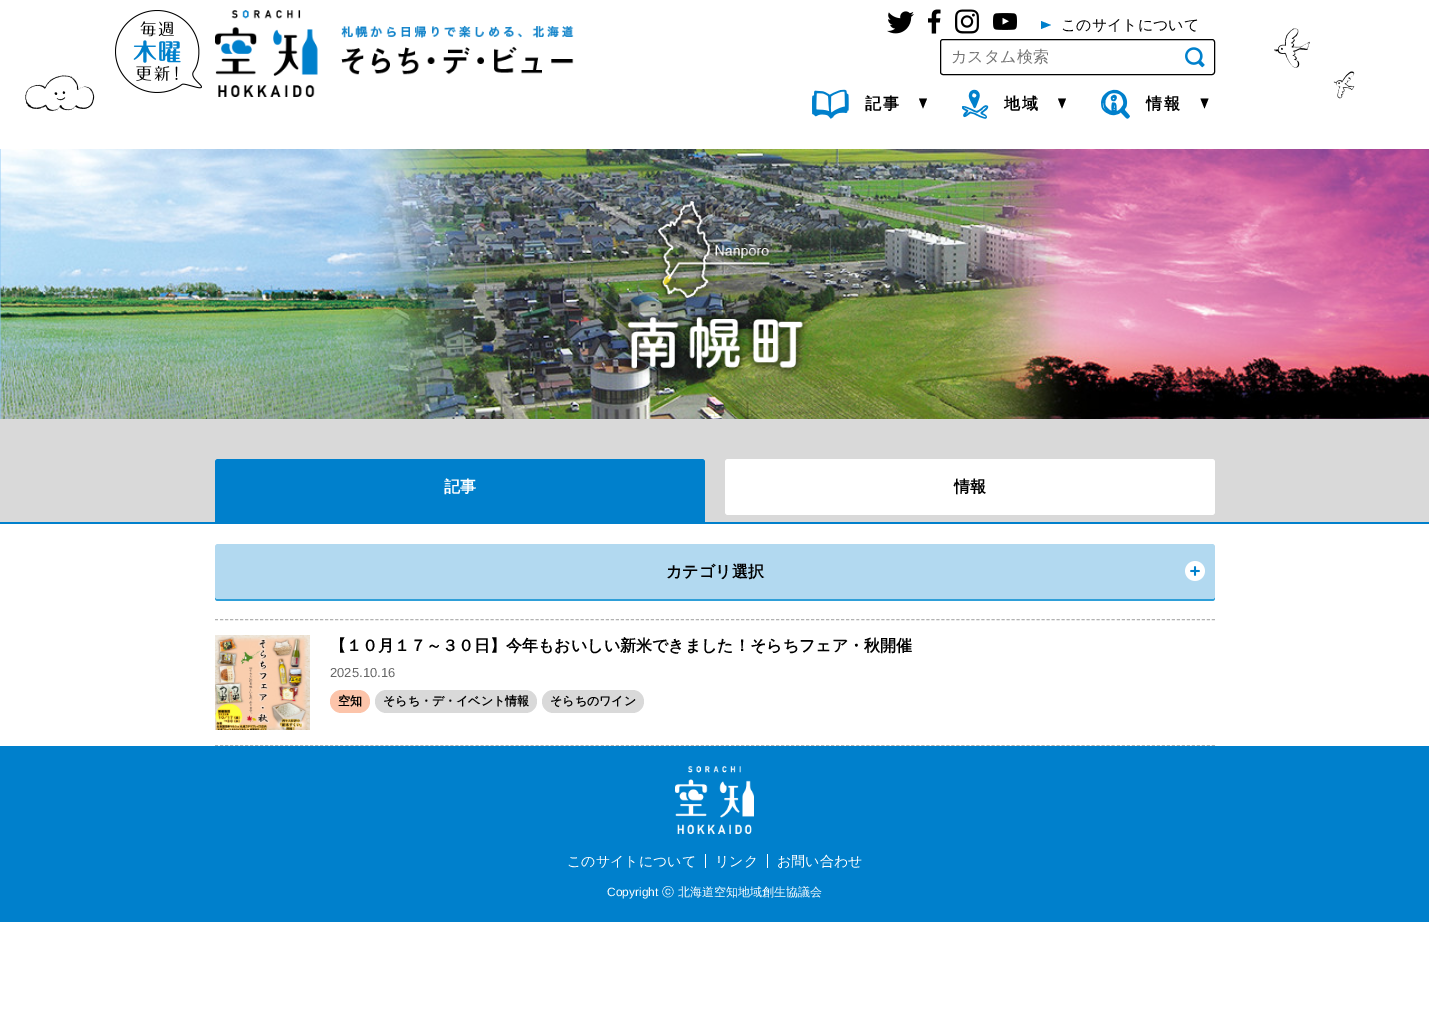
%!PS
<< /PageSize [1429 1024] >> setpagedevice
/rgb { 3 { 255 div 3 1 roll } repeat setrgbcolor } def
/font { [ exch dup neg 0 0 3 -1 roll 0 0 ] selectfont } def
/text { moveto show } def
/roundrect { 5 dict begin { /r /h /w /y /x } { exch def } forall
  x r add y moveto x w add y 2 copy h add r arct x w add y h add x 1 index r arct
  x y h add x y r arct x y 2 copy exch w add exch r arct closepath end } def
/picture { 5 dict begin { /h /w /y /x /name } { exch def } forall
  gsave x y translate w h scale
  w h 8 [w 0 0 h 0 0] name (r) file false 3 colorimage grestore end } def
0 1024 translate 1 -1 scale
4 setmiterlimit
255 255 255 rgb
0 0 1429 1024 rectfill
(img_01.rgb) 25 75 70 37 picture
(img_02.rgb) 115 10 87 83 picture
(img_03.rgb) 215 10 359 87 picture
(img_04.rgb) 887 11 27 23 picture
(img_05.rgb) 928 9 13 25 picture
(img_06.rgb) 955 9 24 25 picture
(img_07.rgb) 993 13 24 17 picture
0 128 204 rgb
1041 29 moveto 0 -8 rlineto 10 4 rlineto closepath fill
0 0 0 rgb
940.5 39.5 274 35 2.5 roundrect stroke
(img_08.rgb) 1185 47 20 21 picture
(img_09.rgb) 812 89 37 30 picture
919 98.5 moveto 8 0 rlineto -4 10 rlineto closepath fill
(img_10.rgb) 962 89 27 30 picture
1058 98.5 moveto 8 0 rlineto -4 10 rlineto closepath fill
(img_11.rgb) 1101 89 29 30 picture
1200.5 98.5 moveto 8 0 rlineto -4 10 rlineto closepath fill
(img_12.rgb) 1274 28 81 71 picture
gsave 0 149 moveto 1 0 rlineto 0 270 rlineto -1 0 rlineto closepath clip newpath
<< /ShadingType 2 /ColorSpace /DeviceRGB /Coords [0 284 1429 284] /Extend [true true] /Function << /FunctionType 2 /Domain [0 1] /C0 [0.557 0.776 0.949] /C1 [0.353 0.471 0.682] /N 1 >> >> shfill grestore
(img_13.rgb) 0 149 1429 270 picture
(img_14.rgb) 620 195 191 182 picture
217 217 217 rgb
0 419 1429 103 rectfill
0 128 204 rgb
0 522 1429 2 rectfill
218 459 moveto 484 0 rlineto 1.5 0 3 1.5 3 3 rcurveto 0 60 rlineto -490 0 rlineto 0 -60 rlineto 0 -1.5 1.5 -3 3 -3 rcurveto closepath fill
255 255 255 rgb
725 459 490 56 3 roundrect fill
46 159 216 rgb
215 596 moveto 0 2 rlineto 0 2 1 3 3 3 rcurveto 994 0 rlineto 2 0 3 -1 3 -3 rcurveto 0 -2 rlineto 0 2 -1 3 -3 3 rcurveto -994 0 rlineto -2 0 -3 -1 -3 -3 rcurveto closepath fill
178 217 240 rgb
215 544 1000 55 3 roundrect fill
(img_15.rgb) 1185 561 20 20 picture
178 178 178 rgb
[3 2.01] 0 setdash
215 619.5 moveto 1000 0 rlineto stroke
215 745.5 moveto 1000 0 rlineto stroke
(img_16.rgb) 215 635 95 95 picture
252 196 170 rgb
330 690 40 23 11.5 roundrect fill
217 217 217 rgb
375 690 162 23 11.5 roundrect fill
542 690 102 23 11.5 roundrect fill
0 128 204 rgb
0 746 1429 176 rectfill
(img_17.rgb) 675 766 79 68 picture
255 255 255 rgb
705 854 1 14 rectfill
767 854 1 14 rectfill
/WenQuanYiZenHei-Medium 15 font
0 0 0 rgb
(このサイトについて) 1061 30 text
/WenQuanYiZenHei-Medium 16 font
117 117 117 rgb
(カスタム検索) 951 62 text
/WenQuanYiZenHei-Bold 16 font
0 0 0 rgb
865 109 moveto 2 0 (記事) ashow
1004 109 moveto 2 0 (地域) ashow
1146 109 moveto 2 0 (情報) ashow
255 255 255 rgb
(記事) 444 492 text
0 0 0 rgb
(情報) 954 492 text
(カテゴリ選択) 666 577 text
(【１０月１７～３０日】今年もおいしい新米できました！そらちフェア・秋開催) 330 651 text
/LiberationSans-Regular 13 font
102 102 102 rgb
(2025.10.16) 330 677 text
/WenQuanYiZenHei-Bold 12 font
0 0 0 rgb
(空知) 338 705 text
(そらち・デ・イベント情報) 383 705 text
(そらちのワイン) 550 705 text
/WenQuanYiZenHei-Medium 14 font
255 255 255 rgb
(このサイトについて) 567 866 text
(リンク) 715 866 text
(お問い合わせ) 777 866 text
/LiberationSans-Regular 12 font
(Copyright) 607 896 text
/WenQuanYiZenHei-Medium 12 font
(ⓒ 北海道空知地域創生協議会) 662 896 text
showpage
